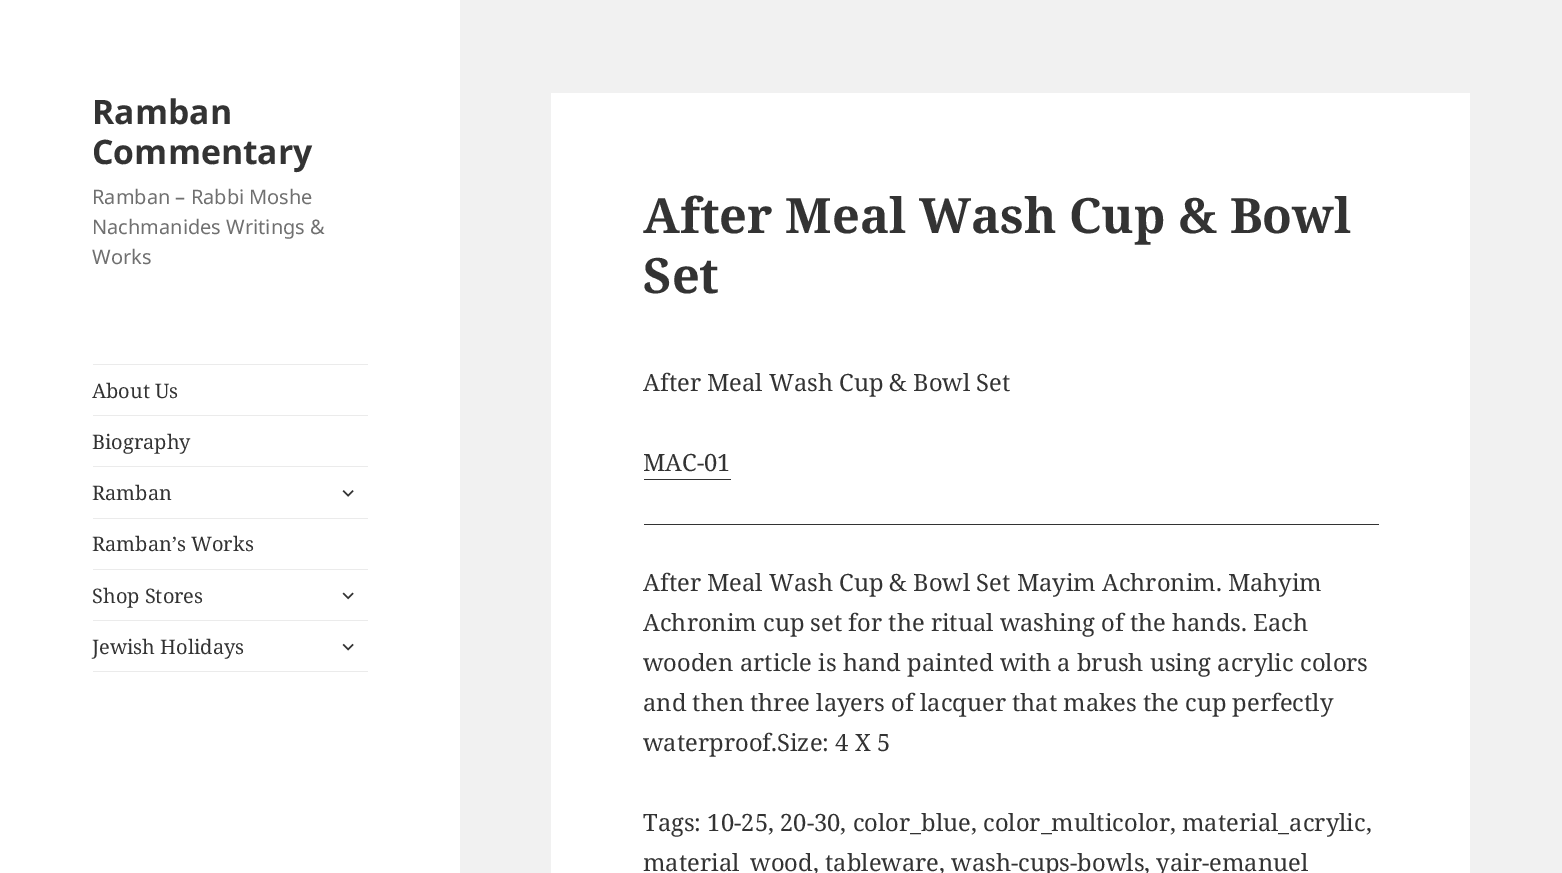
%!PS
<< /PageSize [1562 873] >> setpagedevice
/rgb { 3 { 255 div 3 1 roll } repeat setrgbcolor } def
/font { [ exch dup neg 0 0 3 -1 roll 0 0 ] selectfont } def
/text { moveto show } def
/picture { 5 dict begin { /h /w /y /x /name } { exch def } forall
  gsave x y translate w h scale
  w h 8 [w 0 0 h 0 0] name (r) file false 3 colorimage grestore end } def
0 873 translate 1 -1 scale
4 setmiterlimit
241 241 241 rgb
0 0 1562 873 rectfill
255 255 255 rgb
0 0 460 873 rectfill
235 235 235 rgb
93 364 275 1 rectfill
93 671 275 1 rectfill
93 415 275 1 rectfill
93 466 275 1 rectfill
(img_01.rgb) 342 490 12 7 picture
93 518 275 1 rectfill
93 569 275 1 rectfill
(img_02.rgb) 342 592 12 8 picture
93 620 275 1 rectfill
(img_03.rgb) 342 643 12 8 picture
255 255 255 rgb
551 93 919 780 rectfill
51 51 51 rgb
644 479 87 1 rectfill
644 524 735 1 rectfill
/NotoSans-Bold 33.75 font
(Ramban) 92 124 text
(Commentary) 92 164 text
/NotoSans-Regular 20 font
112 112 112 rgb
(Ramban – Rabbi Moshe) 92 204 text
(Nachmanides Writings &) 92 234 text
(Works) 92 264 text
/NotoSerif-Regular 20 font
51 51 51 rgb
(About Us) 92 398 text
(Biography) 92 449 text
(Ramban) 92 500 text
(Ramban’s Works) 92 551 text
(Shop Stores) 92 603 text
(Jewish Holidays) 92 654 text
/NotoSerif-Bold 48.75 font
(After Meal Wash Cup & Bowl) 643 233 text
(Set) 643 293 text
/NotoSerif-Regular 23.75 font
(After Meal Wash Cup & Bowl Set) 643 391 text
(MAC-01) 643 471 text
(After Meal Wash Cup & Bowl Set Mayim Achronim. Mahyim) 643 591 text
(Achronim cup set for the ritual washing of the hands. Each) 643 631 text
(wooden article is hand painted with a brush using acrylic colors) 643 671 text
(and then three layers of lacquer that makes the cup perfectly) 643 711 text
(waterproof.Size: 4 X 5) 643 751 text
(Tags: 10-25, 20-30, color_blue, color_multicolor, material_acrylic,) 643 831 text
(material_wood, tableware, wash-cups-bowls, yair-emanuel) 643 871 text
showpage
